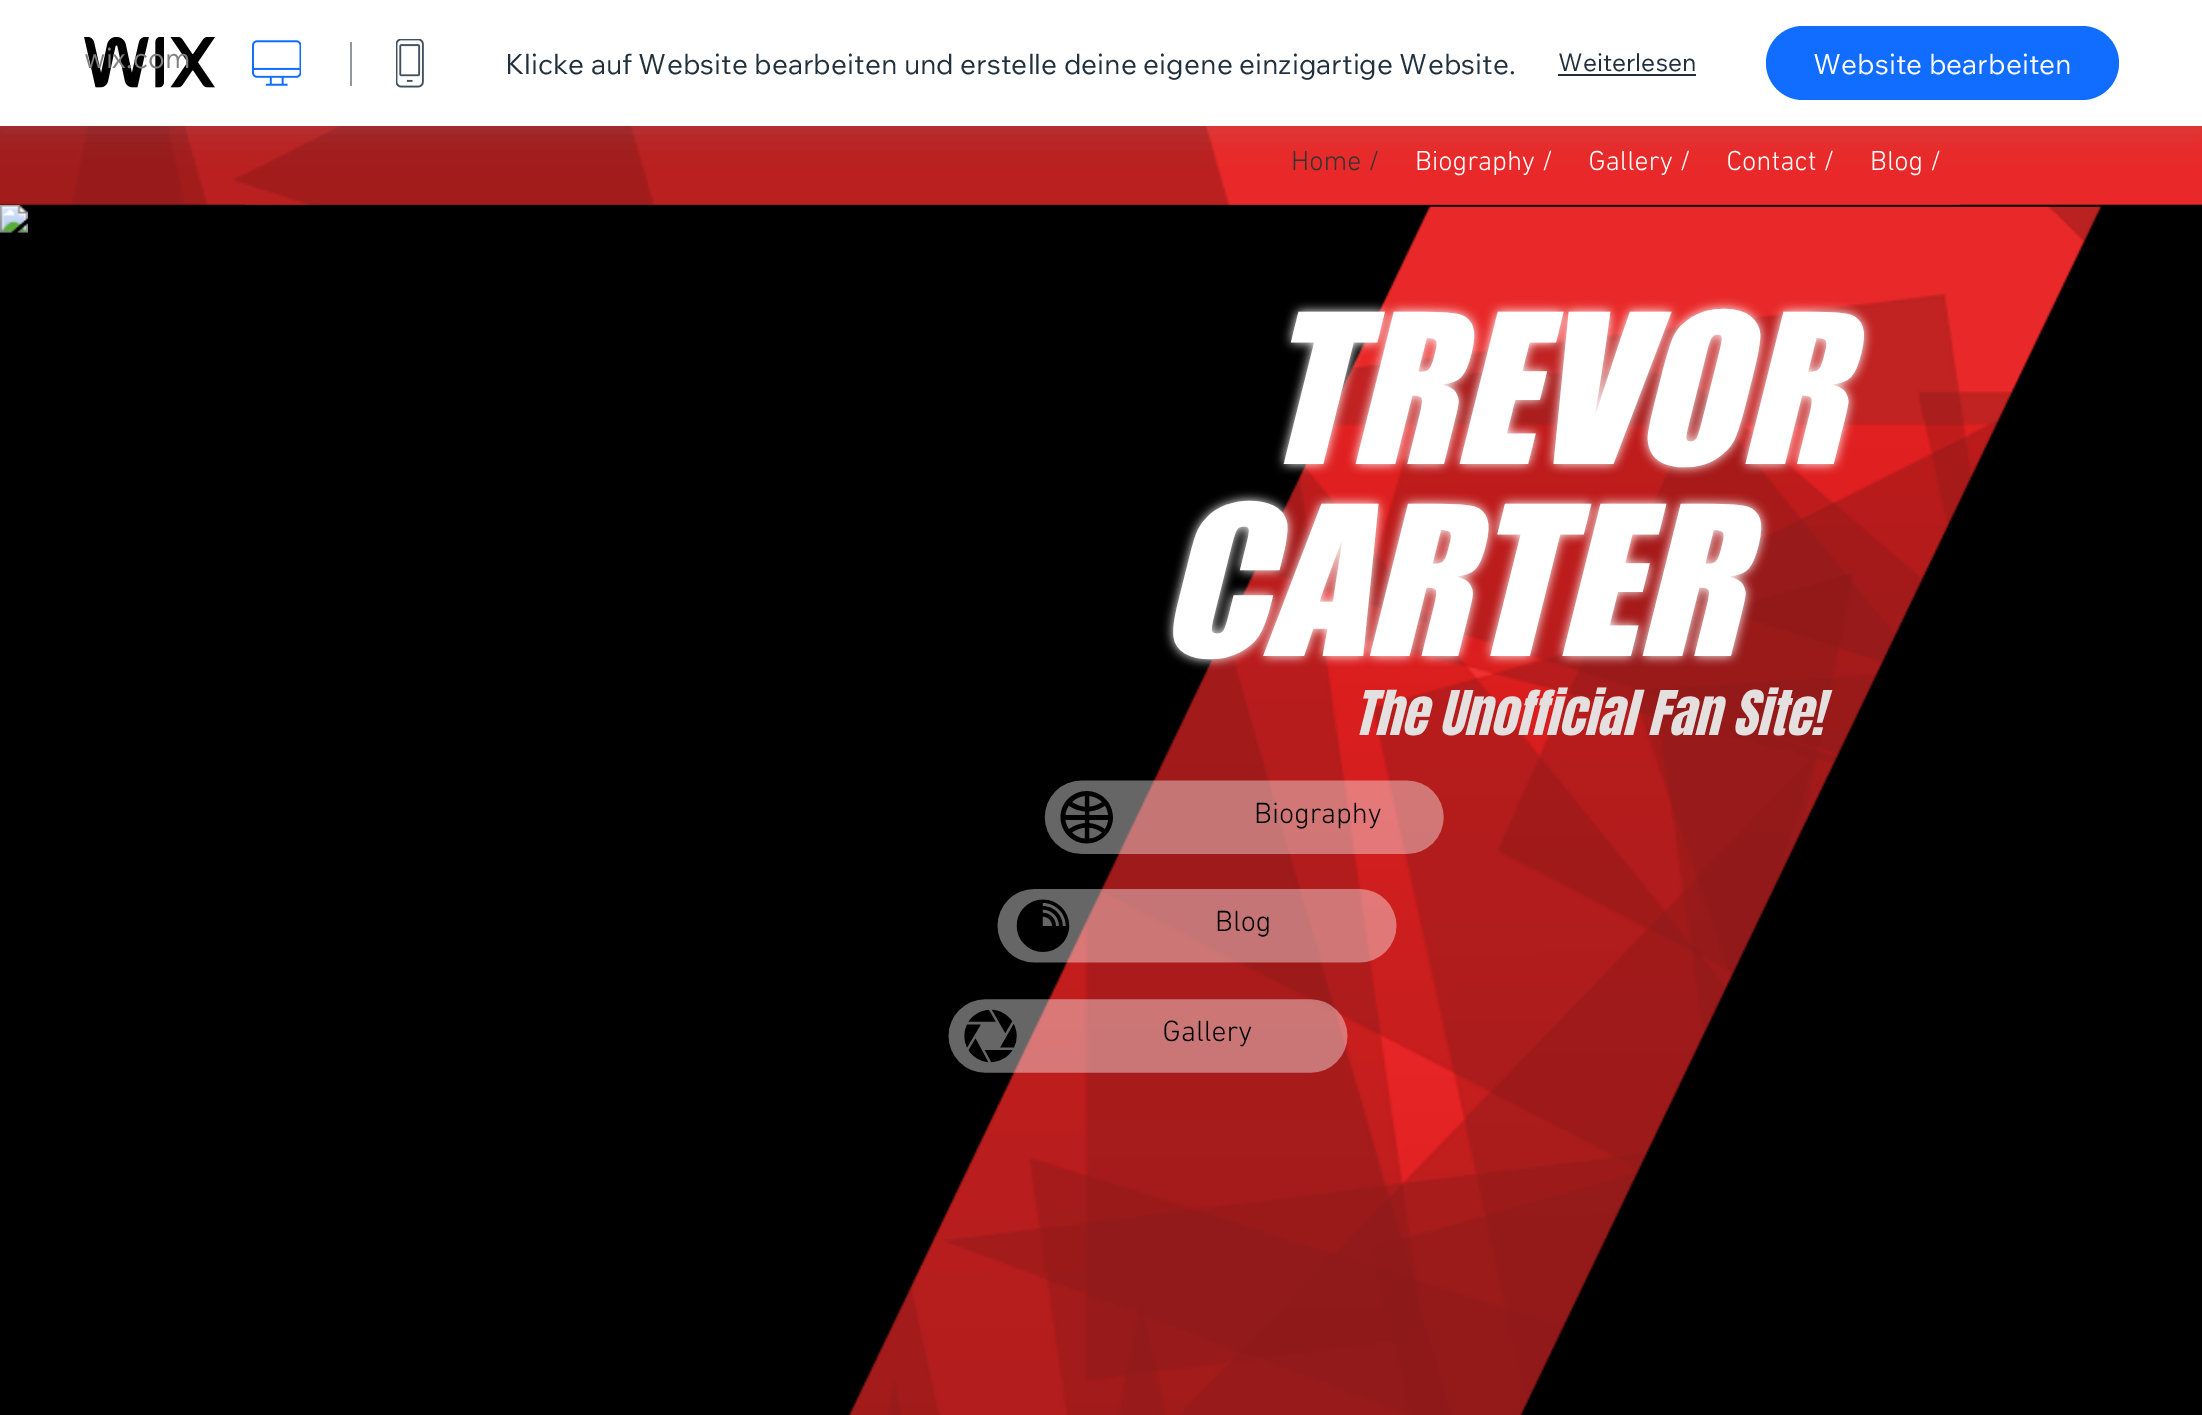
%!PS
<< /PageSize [2202 1415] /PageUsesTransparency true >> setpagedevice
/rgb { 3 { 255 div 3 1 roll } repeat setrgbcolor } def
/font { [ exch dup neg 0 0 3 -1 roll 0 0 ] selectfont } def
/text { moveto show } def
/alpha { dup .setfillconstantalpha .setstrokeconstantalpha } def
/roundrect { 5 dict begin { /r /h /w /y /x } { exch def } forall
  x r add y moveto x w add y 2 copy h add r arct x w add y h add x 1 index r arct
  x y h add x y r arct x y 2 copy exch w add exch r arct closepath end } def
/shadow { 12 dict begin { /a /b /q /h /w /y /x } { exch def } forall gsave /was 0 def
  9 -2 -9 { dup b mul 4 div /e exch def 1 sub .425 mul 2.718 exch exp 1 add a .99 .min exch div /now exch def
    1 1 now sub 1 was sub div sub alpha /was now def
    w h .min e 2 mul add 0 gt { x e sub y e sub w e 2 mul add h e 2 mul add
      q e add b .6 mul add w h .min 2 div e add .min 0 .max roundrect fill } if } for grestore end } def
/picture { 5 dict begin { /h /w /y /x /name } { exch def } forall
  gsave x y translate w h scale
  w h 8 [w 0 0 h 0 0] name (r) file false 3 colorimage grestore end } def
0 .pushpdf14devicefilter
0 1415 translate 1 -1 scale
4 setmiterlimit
255 255 255 rgb
0 0 2202 1415 rectfill
(img_04.rgb) 0 126 2202 1289 picture
129 162 182 rgb
0 4 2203 126 0 16 0.2 shadow
255 255 255 rgb
0 0 2202 126 rectfill
(img_01.rgb) 84 37 131 51 picture
(img_02.rgb) 252 40 49 46 picture
144 152 158 rgb
350 42 2 44 rectfill
(img_03.rgb) 396 39 28 49 picture
32 48 60 rgb
1558 74 138 2 rectfill
17 109 255 rgb
1766 26 353 74 37 roundrect fill
/WixMadeforText-Regular 28 font
127 127 127 rgb
(wix.com) 84 68 text
32 48 60 rgb
(Klicke auf Website bearbeiten und erstelle deine eigene einzigartige Website.) 505 74 text
/WixMadeforText-Regular 24.5 font
(Weiterlesen) 1558 71 text
/WixMadeforText-Regular 28 font
255 255 255 rgb
(Website bearbeiten) 1813 74 text
.poppdf14devicefilter showpage
